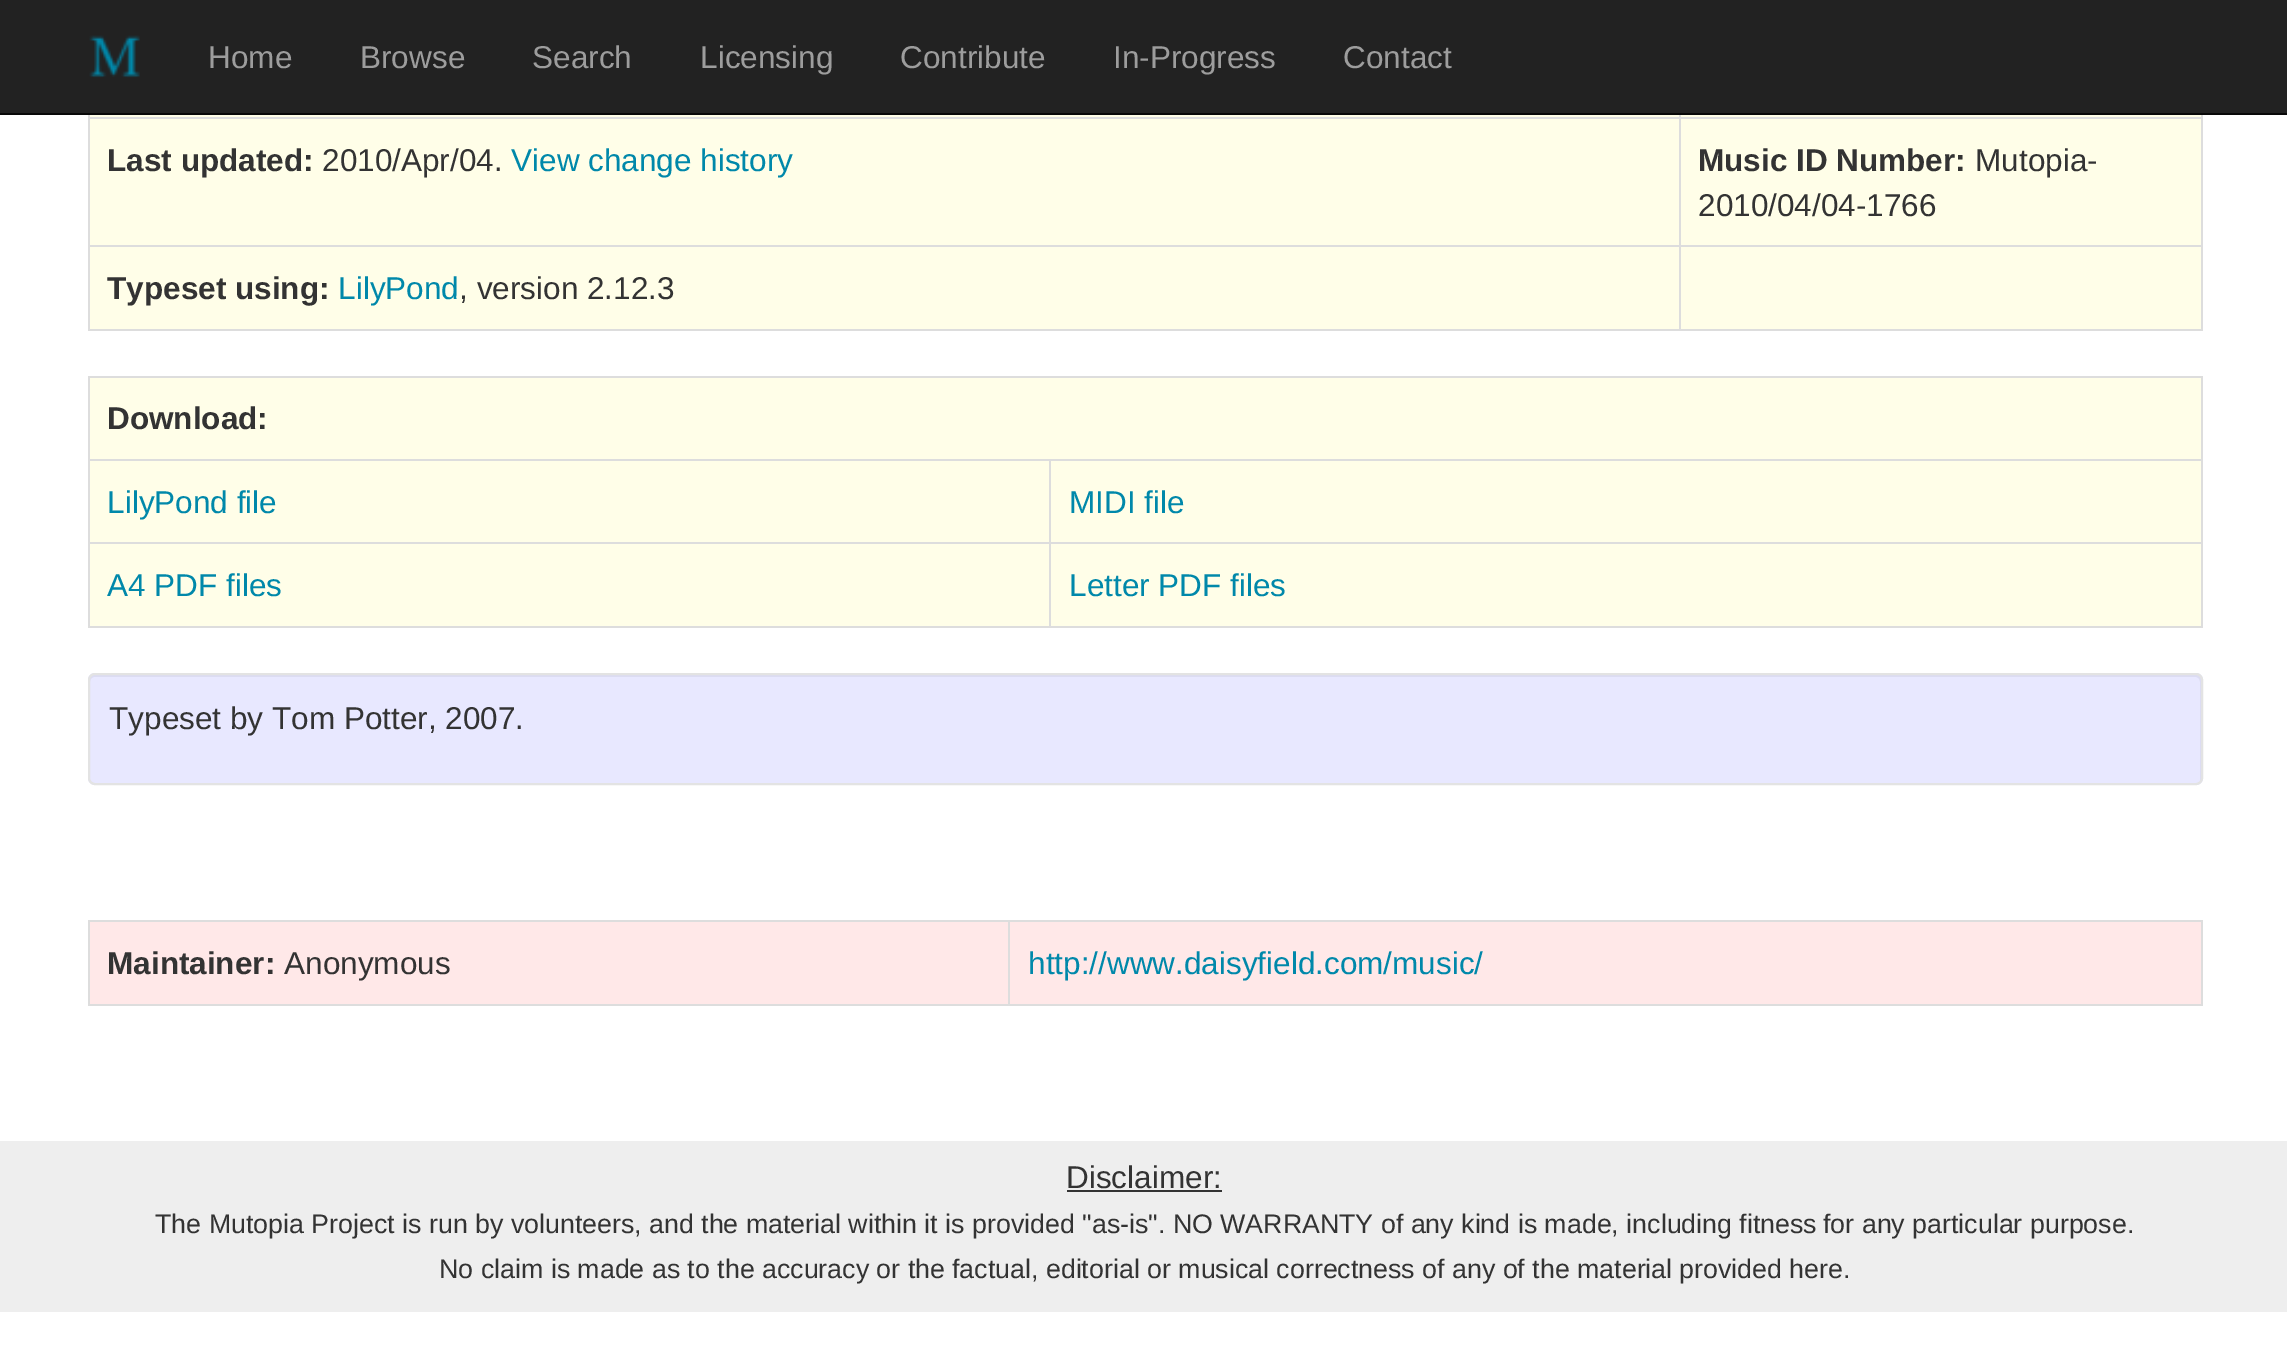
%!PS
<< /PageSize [2287 1356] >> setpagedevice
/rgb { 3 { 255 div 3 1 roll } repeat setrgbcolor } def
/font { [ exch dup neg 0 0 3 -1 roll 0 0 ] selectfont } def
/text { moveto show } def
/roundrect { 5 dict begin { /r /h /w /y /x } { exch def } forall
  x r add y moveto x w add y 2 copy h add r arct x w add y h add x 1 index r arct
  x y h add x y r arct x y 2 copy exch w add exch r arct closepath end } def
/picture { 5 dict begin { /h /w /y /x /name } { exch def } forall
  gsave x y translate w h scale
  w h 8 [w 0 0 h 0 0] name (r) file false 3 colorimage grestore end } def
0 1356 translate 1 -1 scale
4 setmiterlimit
255 255 255 rgb
0 0 2287 1356 rectfill
34 34 34 rgb
0 0 2287 113 rectfill
8 8 8 rgb
0 113 2287 2 rectfill
(img_01.rgb) 89 35 51 43 picture
255 254 232 rgb
90 115 2111 214 rectfill
221 221 221 rgb
2201 115 2 216 rectfill
88 329 2115 2 rectfill
88 115 2 216 rectfill
1679 117 524 2 rectfill
1679 245 524 2 rectfill
1679 245 2 86 rectfill
88 245 1593 2 rectfill
1679 117 2 131 rectfill
88 117 1593 2 rectfill
1679 115 2 4 rectfill
255 254 232 rgb
90 378 2111 248 rectfill
221 221 221 rgb
88 376 2115 2 rectfill
2201 376 2 252 rectfill
88 626 2115 2 rectfill
88 376 2 252 rectfill
1049 459 1154 2 rectfill
1049 542 1154 2 rectfill
1049 542 2 86 rectfill
88 542 963 2 rectfill
1049 459 2 86 rectfill
88 459 963 2 rectfill
232 232 255 rgb
88 673 2115 112 7 roundrect fill
220 220 242 rgb
94 677 moveto 2102 0 rlineto 2 0 4 2 4 5 rcurveto 0 99 rlineto 1 -1 1 -2 1 -3 rcurveto 0 -98 rlineto 0 -3 -2 -5 -5 -5 rcurveto -2101 0 rlineto -3 0 -5 2 -5 5 rcurveto 0 2 rlineto 0 -3 2 -5 4 -5 rcurveto closepath fill
227 227 227 rgb
2 setlinewidth
89 674 2113 110 6 roundrect stroke
255 232 232 rgb
90 922 2111 82 rectfill
221 221 221 rgb
88 920 2115 2 rectfill
2201 920 2 86 rectfill
88 1004 2115 2 rectfill
88 920 2 86 rectfill
1008 920 2 86 rectfill
238 238 238 rgb
0 1141 2287 171 rectfill
51 51 51 rgb
1067 1190 155 2 rectfill
/LiberationSans-Regular 31.5 font
157 157 157 rgb
(Home) 208 68 text
(Browse) 360 68 text
(Search) 532 68 text
(Licensing) 700 68 text
(Contribute) 900 68 text
(In-Progress) 1113 68 text
(Contact) 1343 68 text
/LiberationSans-Bold 31.5 font
51 51 51 rgb
(Last updated:) 107 171 text
/LiberationSans-Regular 31.5 font
(2010/Apr/04.) 322 171 text
0 136 170 rgb
(View change history) 511 171 text
/LiberationSans-Bold 31.5 font
51 51 51 rgb
(Music ID Number:) 1698 171 text
/LiberationSans-Regular 31.5 font
(Mutopia-) 1975 171 text
(2010/04/04-1766) 1698 216 text
/LiberationSans-Bold 31.5 font
(Typeset using:) 107 299 text
/LiberationSans-Regular 31.5 font
0 136 170 rgb
(LilyPond) 338 299 text
51 51 51 rgb
(, version 2.12.3) 459 299 text
/LiberationSans-Bold 31.5 font
(Download:) 107 429 text
/LiberationSans-Regular 31.5 font
0 136 170 rgb
(LilyPond file) 107 513 text
(MIDI file) 1069 513 text
(A4 PDF files) 107 596 text
(Letter PDF files) 1069 596 text
51 51 51 rgb
(Typeset by Tom Potter, 2007.) 109 729 text
/LiberationSans-Bold 31.5 font
(Maintainer:) 107 974 text
/LiberationSans-Regular 31.5 font
(Anonymous) 284 974 text
0 136 170 rgb
(http://www.daisyfield.com/music/) 1028 974 text
51 51 51 rgb
(Disclaimer:) 1066 1188 text
/LiberationSans-Regular 26.78 font
(The Mutopia Project is run by volunteers, and the material within it is provided "as-is". NO WARRANTY of any kind is made, including fitness) 155 1233 text
(for any particular purpose.) 1823 1233 text
(No claim is made as to the accuracy or the) 439 1278 text
(factual, editorial or musical correctness of any of the material) 952 1278 text
(provided here.) 1679 1278 text
showpage
